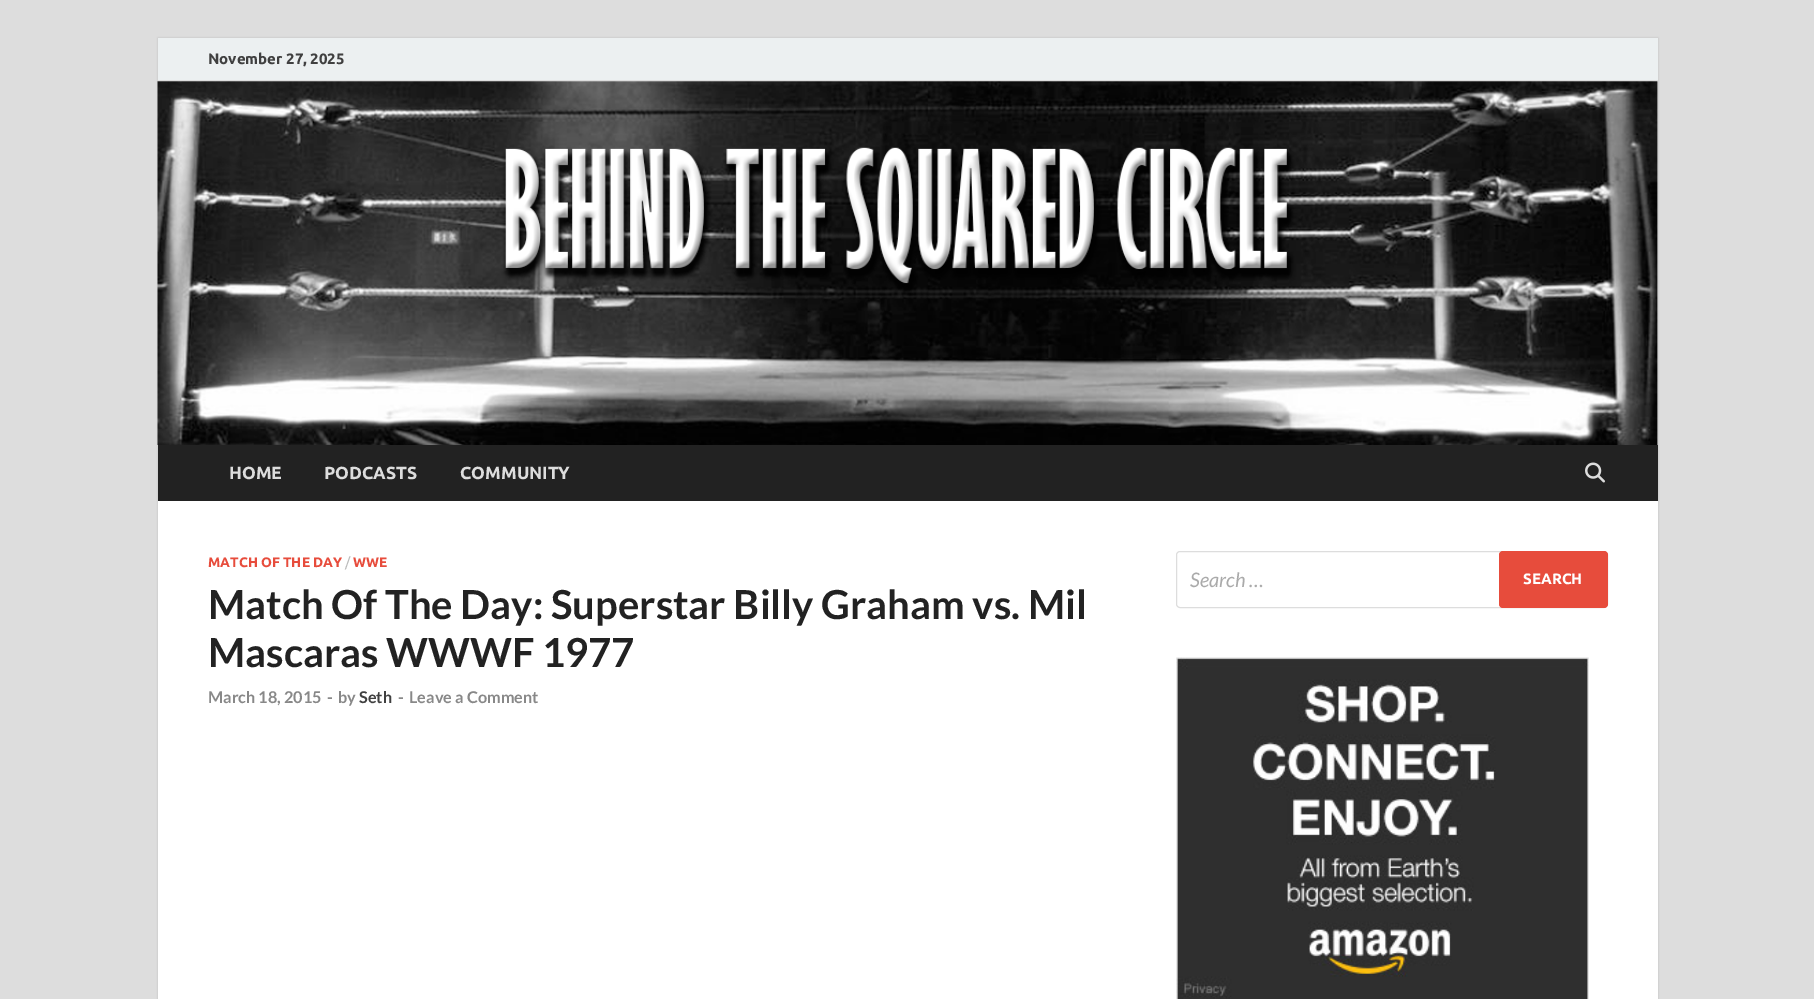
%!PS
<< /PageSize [1814 999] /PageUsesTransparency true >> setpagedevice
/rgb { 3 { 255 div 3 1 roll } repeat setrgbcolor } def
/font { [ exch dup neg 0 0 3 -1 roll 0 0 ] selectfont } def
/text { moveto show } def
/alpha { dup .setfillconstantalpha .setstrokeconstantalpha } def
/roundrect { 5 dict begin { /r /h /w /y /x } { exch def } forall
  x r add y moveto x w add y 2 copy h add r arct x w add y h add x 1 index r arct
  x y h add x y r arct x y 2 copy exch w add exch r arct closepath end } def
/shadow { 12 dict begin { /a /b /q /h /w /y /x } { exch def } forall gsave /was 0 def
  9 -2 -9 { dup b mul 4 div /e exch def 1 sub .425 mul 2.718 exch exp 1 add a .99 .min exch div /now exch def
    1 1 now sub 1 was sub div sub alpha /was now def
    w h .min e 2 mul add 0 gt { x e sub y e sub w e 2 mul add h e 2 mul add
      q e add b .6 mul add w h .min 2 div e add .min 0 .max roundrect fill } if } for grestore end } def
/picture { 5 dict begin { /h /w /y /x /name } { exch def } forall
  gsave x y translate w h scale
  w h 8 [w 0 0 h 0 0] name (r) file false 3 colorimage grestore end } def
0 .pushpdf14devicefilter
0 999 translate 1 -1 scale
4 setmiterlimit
221 221 221 rgb
0 0 1814 999 rectfill
187 187 187 rgb
158 38 1500 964 0 1 1 shadow
255 255 255 rgb
158 81 1500 918 rectfill
236 240 241 rgb
158 38 1500 42 rectfill
221 221 221 rgb
158 80 1500 1 rectfill
(img_01.rgb) 157 81 1501 364 picture
34 34 34 rgb
158 445 1500 56 rectfill
(img_02.rgb) 1585 462 20 21 picture
221 221 221 rgb
1176.5 551.5 431 56 3.5 roundrect stroke
231 76 60 rgb
1499 551 109 57 4 roundrect fill
(img_03.rgb) 1176 657 413 342 picture
/Ubuntu-Bold 15 font
64 64 64 rgb
(November 27, 2025) 208 64 text
/Ubuntu-Bold 17.5 font
221 221 221 rgb
(HOME) 229 479 text
(PODCASTS) 324 479 text
(COMMUNITY) 460 479 text
/Ubuntu-Bold 13.75 font
231 76 60 rgb
(MATCH OF THE DAY) 208 567 text
/Ubuntu-Regular 13.75 font
187 187 187 rgb
(/) 345 567 text
/Ubuntu-Bold 13.75 font
231 76 60 rgb
(WWE) 353 567 text
/Lato-Bold 40 font
34 34 34 rgb
(Match Of The Day: Superstar Billy Graham vs. Mil) 208 619 text
(Mascaras WWWF 1977) 208 667 text
/Lato-Bold 16.25 font
136 136 136 rgb
(March 18, 2015) 208 703 text
(-) 327 703 text
(by) 338 703 text
64 64 64 rgb
(Seth) 359 703 text
136 136 136 rgb
(-) 398 703 text
(Leave a Comment) 409 703 text
/Lato-Italic 20 font
170 170 170 rgb
(Search …) 1190 587 text
/Ubuntu-Bold 15 font
255 255 255 rgb
(SEARCH) 1523 584 text
.poppdf14devicefilter showpage
